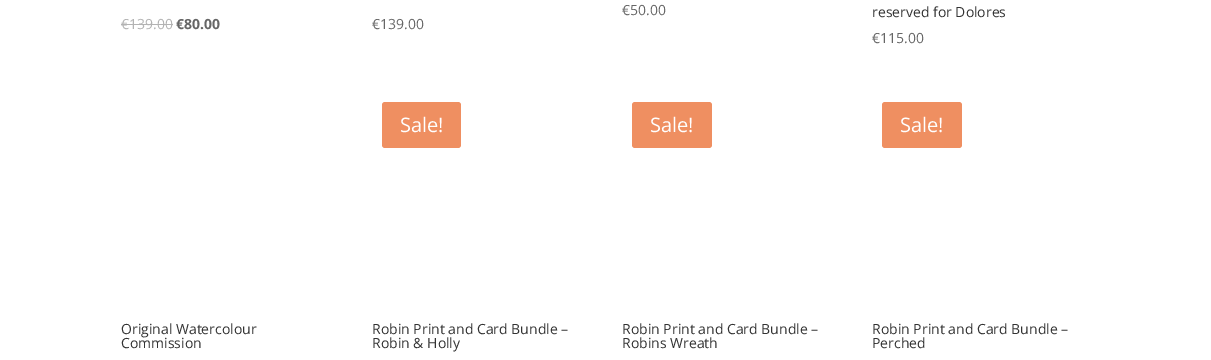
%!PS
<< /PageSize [1211 360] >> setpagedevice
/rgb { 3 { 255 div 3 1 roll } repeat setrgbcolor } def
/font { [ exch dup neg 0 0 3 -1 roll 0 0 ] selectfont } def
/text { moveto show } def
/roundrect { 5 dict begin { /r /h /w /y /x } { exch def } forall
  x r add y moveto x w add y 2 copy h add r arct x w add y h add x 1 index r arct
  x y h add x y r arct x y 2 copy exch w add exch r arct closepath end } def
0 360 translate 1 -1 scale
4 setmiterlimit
255 255 255 rgb
0 0 1211 360 rectfill
179 179 179 rgb
121 24 52 1 rectfill
239 143 97 rgb
382 102 79 46 3 roundrect fill
632 102 80 46 3 roundrect fill
882 102 80 46 3 roundrect fill
/OpenSans-Regular 14 font
179 179 179 rgb
(€139.00) 121 29 text
/OpenSans-Bold 14 font
102 102 102 rgb
(€80.00) 176 29 text
/OpenSans-Regular 14 font
(€139.00) 372 29 text
(€50.00) 622 15 text
51 51 51 rgb
(reserved for Dolores) 872 17 text
102 102 102 rgb
(€115.00) 872 43 text
51 51 51 rgb
(Original Watercolour) 121 334 text
(Commission) 121 348 text
/OpenSans-Regular 20 font
255 255 255 rgb
(Sale!) 400 132 text
/OpenSans-Regular 14 font
51 51 51 rgb
(Robin Print and Card Bundle –) 372 334 text
(Robin & Holly) 372 348 text
/OpenSans-Regular 20 font
255 255 255 rgb
(Sale!) 650 132 text
/OpenSans-Regular 14 font
51 51 51 rgb
(Robin Print and Card Bundle –) 622 334 text
(Robins Wreath) 622 348 text
/OpenSans-Regular 20 font
255 255 255 rgb
(Sale!) 900 132 text
/OpenSans-Regular 14 font
51 51 51 rgb
(Robin Print and Card Bundle –) 872 334 text
(Perched) 872 348 text
showpage
